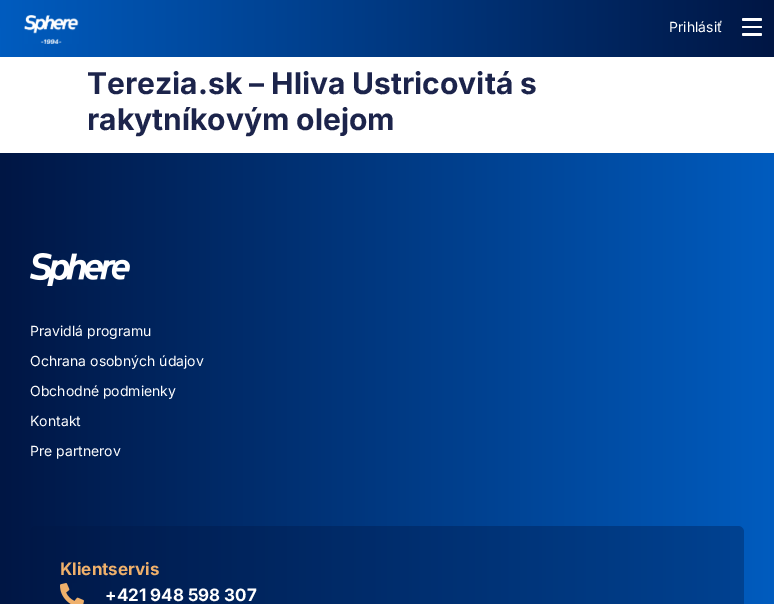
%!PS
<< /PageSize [774 604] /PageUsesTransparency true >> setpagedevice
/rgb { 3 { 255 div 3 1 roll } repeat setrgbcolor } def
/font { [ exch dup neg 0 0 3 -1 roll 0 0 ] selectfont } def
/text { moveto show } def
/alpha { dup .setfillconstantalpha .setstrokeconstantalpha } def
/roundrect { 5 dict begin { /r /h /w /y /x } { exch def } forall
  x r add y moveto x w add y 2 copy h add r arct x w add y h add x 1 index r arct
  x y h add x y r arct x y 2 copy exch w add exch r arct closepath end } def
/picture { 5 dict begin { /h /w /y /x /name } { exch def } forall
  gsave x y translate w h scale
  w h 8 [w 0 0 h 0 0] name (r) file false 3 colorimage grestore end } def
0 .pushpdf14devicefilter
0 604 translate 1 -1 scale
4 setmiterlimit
255 255 255 rgb
0 0 774 604 rectfill
gsave 0 0 moveto 774 0 rlineto 0 57 rlineto -774 0 rlineto closepath clip newpath
<< /ShadingType 2 /ColorSpace /DeviceRGB /Coords [0 29 774 28] /Extend [true true] /Function << /FunctionType 2 /Domain [0 1] /C0 [0 0.361 0.749] /C1 [0 0.086 0.267] /N 1 >> >> shfill grestore
(img_01.rgb) 24 15 55 29 picture
742 18 20 3 1.5 roundrect fill
742 26 20 2 1 roundrect fill
742 33 20 3 1.5 roundrect fill
gsave 0 153 moveto 774 0 rlineto 0 451 rlineto -774 0 rlineto closepath clip newpath
<< /ShadingType 2 /ColorSpace /DeviceRGB /Coords [0 479 774 479] /Extend [true true] /Function << /FunctionType 2 /Domain [0 1] /C0 [0 0.086 0.267] /C1 [0 0.361 0.749] /N 1 >> >> shfill grestore
(img_02.rgb) 30 253 100 33 picture
0.35 alpha
0 22 68 rgb
30 526 714 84 6 roundrect fill
1 alpha
(img_03.rgb) 60 583 24 21 picture
/Inter-Regular 14 font
255 255 255 rgb
(Prihlásiť) 669 32 text
/Inter-Bold 30 font
28 36 75 rgb
(Terezia.sk – Hliva Ustricovitá s) 87 94 text
(rakytníkovým olejom) 87 130 text
/Inter-Regular 14 font
255 255 255 rgb
(Pravidlá programu) 30 336 text
(Ochrana osobných údajov) 30 366 text
(Obchodné podmienky) 30 396 text
(Kontakt) 30 426 text
(Pre partnerov) 30 456 text
/Inter-Bold 17 font
239 176 107 rgb
(Klientservis) 60 575 text
255 255 255 rgb
(+421 948 598 307) 105 601 text
.poppdf14devicefilter showpage
